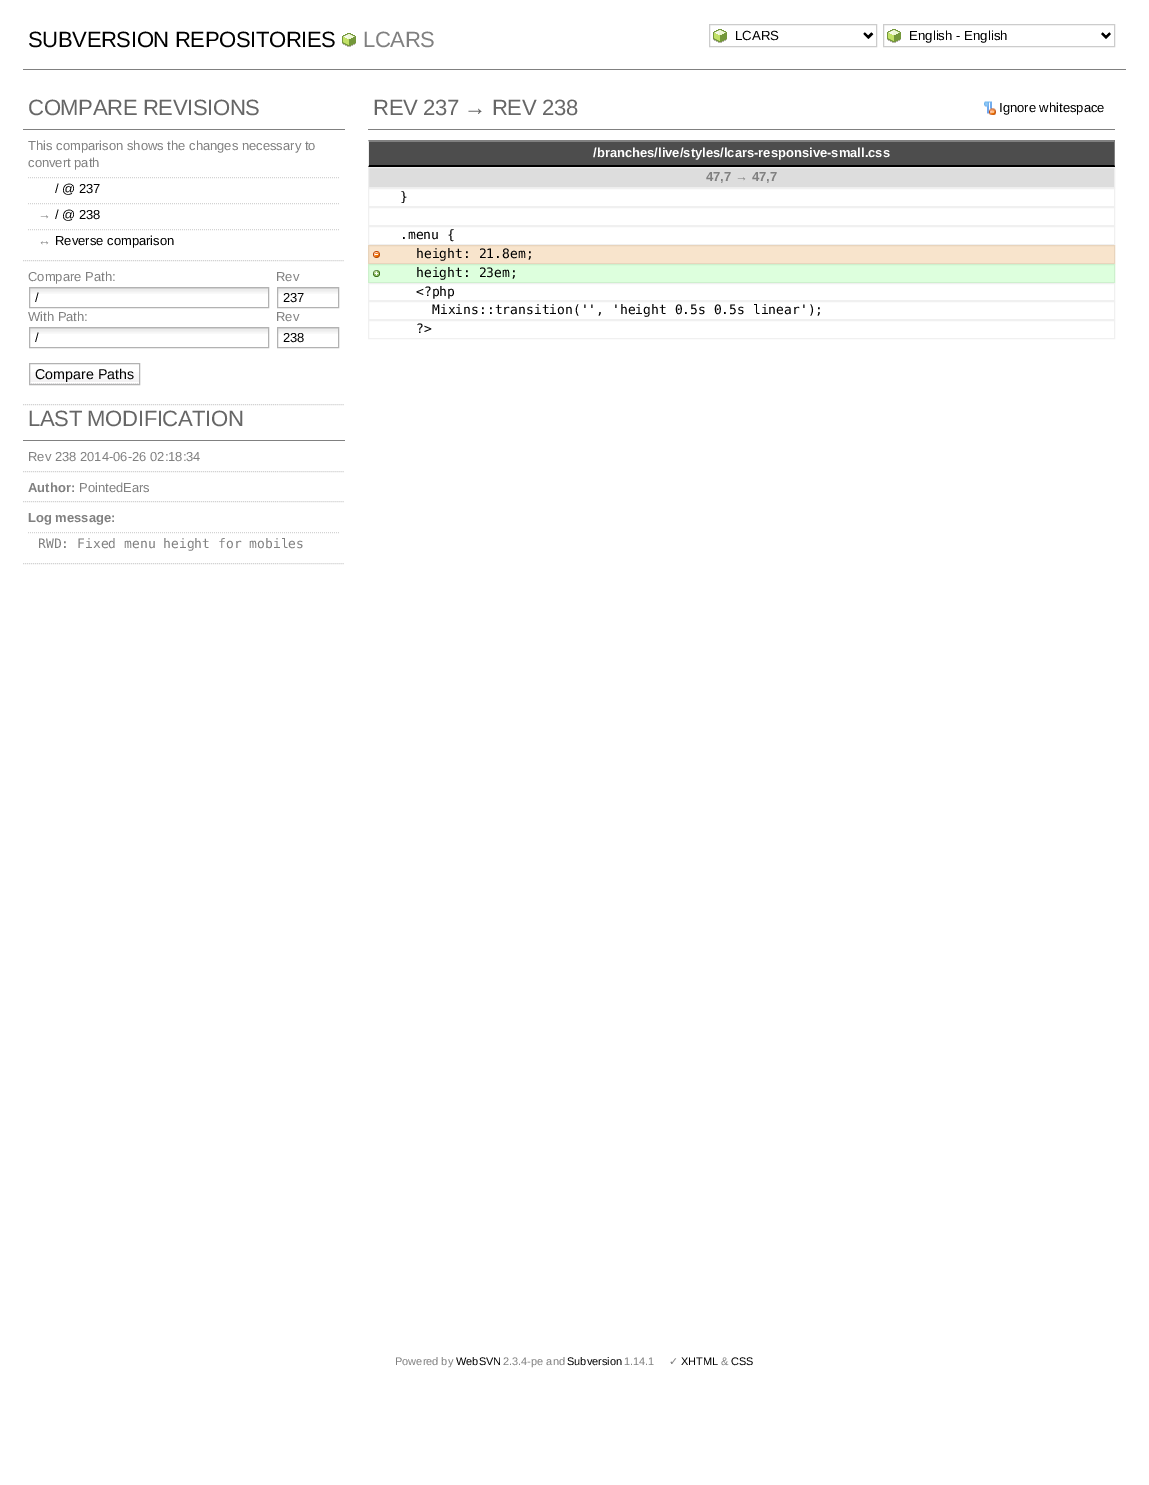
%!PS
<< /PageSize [1149 1485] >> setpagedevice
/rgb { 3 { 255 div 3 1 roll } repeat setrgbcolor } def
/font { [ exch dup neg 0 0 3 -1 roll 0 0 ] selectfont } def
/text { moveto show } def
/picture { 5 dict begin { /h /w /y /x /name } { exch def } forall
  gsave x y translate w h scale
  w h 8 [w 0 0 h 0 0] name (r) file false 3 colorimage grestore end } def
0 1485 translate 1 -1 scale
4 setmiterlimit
255 255 255 rgb
0 0 1149 1485 rectfill
128 128 128 rgb
23 69 1103 1 rectfill
(img_01.rgb) 342 33 14 14 picture
(img_02.rgb) 713 29 160 14 picture
204 204 204 rgb
709.5 24.5 167 22 rectstroke
0 0 0 rgb
2 setlinewidth
864.5 33.5 moveto 4 4 rlineto 4 -4 rlineto stroke
(img_03.rgb) 887 29 224 14 picture
204 204 204 rgb
1 setlinewidth
883.5 24.5 231 22 rectstroke
0 0 0 rgb
2 setlinewidth
1102 33.5 moveto 4 4 rlineto 4 -4 rlineto stroke
128 128 128 rgb
23 129 322 1 rectfill
211 211 211 rgb
1 setlinewidth
[1 1] 0 setdash
23 260.5 moveto 322 0 rlineto stroke
28 177.5 moveto 312 0 rlineto stroke
28 203.5 moveto 312 0 rlineto stroke
28 229.5 moveto 312 0 rlineto stroke
23 404.5 moveto 322 0 rlineto stroke
(img_04.rgb) 30 288 238 6 picture
178 178 178 rgb
[] 0 setdash
29.5 287.5 239 20 rectstroke
(img_05.rgb) 278 288 60 6 picture
277.5 287.5 61 20 rectstroke
(img_04.rgb) 30 328 238 6 picture
29.5 327.5 239 20 rectstroke
(img_05.rgb) 278 328 60 6 picture
277.5 327.5 61 20 rectstroke
(img_06.rgb) 30 372 109 12 picture
29.5 363.5 110 21 rectstroke
128 128 128 rgb
23 440 322 1 rectfill
211 211 211 rgb
[1 1] 0 setdash
23 471.5 moveto 322 0 rlineto stroke
23 501.5 moveto 322 0 rlineto stroke
23 563.5 moveto 322 0 rlineto stroke
28 532.5 moveto 312 0 rlineto stroke
128 128 128 rgb
368 129 747 1 rectfill
(img_07.rgb) 984 101 12 14 picture
77 77 77 rgb
368 140 747 27 rectfill
128 128 128 rgb
368 140 moveto 747 0 rlineto -1 2 rlineto -745 0 rlineto closepath fill
1115 140 moveto 0 27 rlineto -1 -2 rlineto 0 -23 rlineto closepath fill
0 0 0 rgb
1115 167 moveto -747 0 rlineto 1 -2 rlineto 745 0 rlineto closepath fill
238 238 238 rgb
368 167 moveto 0 -27 rlineto 1 2 rlineto 0 23 rlineto closepath fill
221 221 221 rgb
368.5 167.5 moveto 746 0 rlineto 0 20 rlineto -746 0 rlineto closepath gsave fill grestore
238 238 238 rgb
[] 0 setdash
stroke
240 240 240 rgb
368.5 188.5 746 18 rectstroke
368.5 207.5 746 18 rectstroke
368.5 226.5 746 18 rectstroke
248 228 204 rgb
369 246 745 17 rectfill
(img_08.rgb) 373 251 7 7 picture
232 212 188 rgb
368.5 245.5 746 18 rectstroke
221 255 221 rgb
369 265 745 17 rectfill
(img_09.rgb) 373 270 7 7 picture
205 240 205 rgb
368.5 264.5 746 18 rectstroke
240 240 240 rgb
368.5 283.5 746 17 rectstroke
368.5 301.5 746 18 rectstroke
368.5 320.5 746 18 rectstroke
/LiberationSans-Regular 22.1 font
0 0 0 rgb
28 47 moveto -0.4 0 (SUBVERSION REPOSITORIES) ashow
128 128 128 rgb
363 47 moveto -0.4 0 (LCARS) ashow
/LiberationSans-Regular 13.25 font
0 0 0 rgb
(LCARS) 735 40 text
(English - English) 909 40 text
/LiberationSans-Regular 22.1 font
102 102 102 rgb
28 115 moveto -0.4 0 (COMPARE REVISIONS) ashow
/LiberationSans-Regular 13 font
128 128 128 rgb
(This comparison shows the changes necessary to) 28 150 text
(convert path) 28 167 text
0 0 0 rgb
(/ @ 237) 55 193 text
128 128 128 rgb
(→) 38 219 text
0 0 0 rgb
(/ @ 238) 55 219 text
128 128 128 rgb
(↔) 38 245 text
0 0 0 rgb
(Reverse comparison) 55 245 text
128 128 128 rgb
(Compare Path:) 28 281 text
(Rev) 276 281 text
0 0 0 rgb
(/) 35 302 text
(237) 283 302 text
128 128 128 rgb
(With Path:) 28 321 text
(Rev) 276 321 text
0 0 0 rgb
(/) 35 342 text
(238) 283 342 text
/LiberationSans-Regular 14.25 font
(Compare Paths) 35 379 text
/LiberationSans-Regular 22.1 font
102 102 102 rgb
28 426 moveto -0.4 0 (LAST MODIFICATION) ashow
/LiberationSans-Regular 13 font
128 128 128 rgb
(Rev 238 2014-06-26 02:18:34) 28 461 text
/LiberationSans-Bold 13 font
(Author:) 28 492 text
/LiberationSans-Regular 13 font
(PointedEars) 79 492 text
/LiberationSans-Bold 13 font
(Log message:) 28 522 text
/DejaVuSansMono-Regular 13 font
(RWD: Fixed menu height for mobiles) 38 548 text
/LiberationSans-Regular 22.1 font
102 102 102 rgb
373 115 moveto -0.4 0 (REV 237 → REV 238) ashow
/LiberationSans-Regular 13 font
0 0 0 rgb
(Ignore whitespace) 999 112 text
/LiberationSans-Bold 13 font
255 255 255 rgb
(/branches/live/styles/lcars-responsive-small.css) 593 157 text
128 128 128 rgb
(47,7 → 47,7) 706 181 text
/DejaVuSansMono-Regular 13 font
0 0 0 rgb
(}) 400 201 text
(.menu {) 400 239 text
(height: 21.8em;) 416 258 text
(height: 23em;) 416 277 text
(<?php) 416 296 text
(Mixins::transition\('', 'height 0.5s 0.5s linear'\);) 432 314 text
(?>) 416 333 text
/LiberationSans-Regular 11 font
128 128 128 rgb
(Powered by) 395 1365 text
0 0 0 rgb
(WebSVN) 456 1365 text
128 128 128 rgb
(2.3.4-pe and) 503 1365 text
0 0 0 rgb
(Subversion) 567 1365 text
128 128 128 rgb
(1.14.1) 624 1365 text
/DejaVuSans-Regular 11 font
(✓) 669 1365 text
/LiberationSans-Regular 11 font
0 0 0 rgb
(XHTML) 681 1365 text
128 128 128 rgb
(&) 721 1365 text
0 0 0 rgb
(CSS) 731 1365 text
showpage
